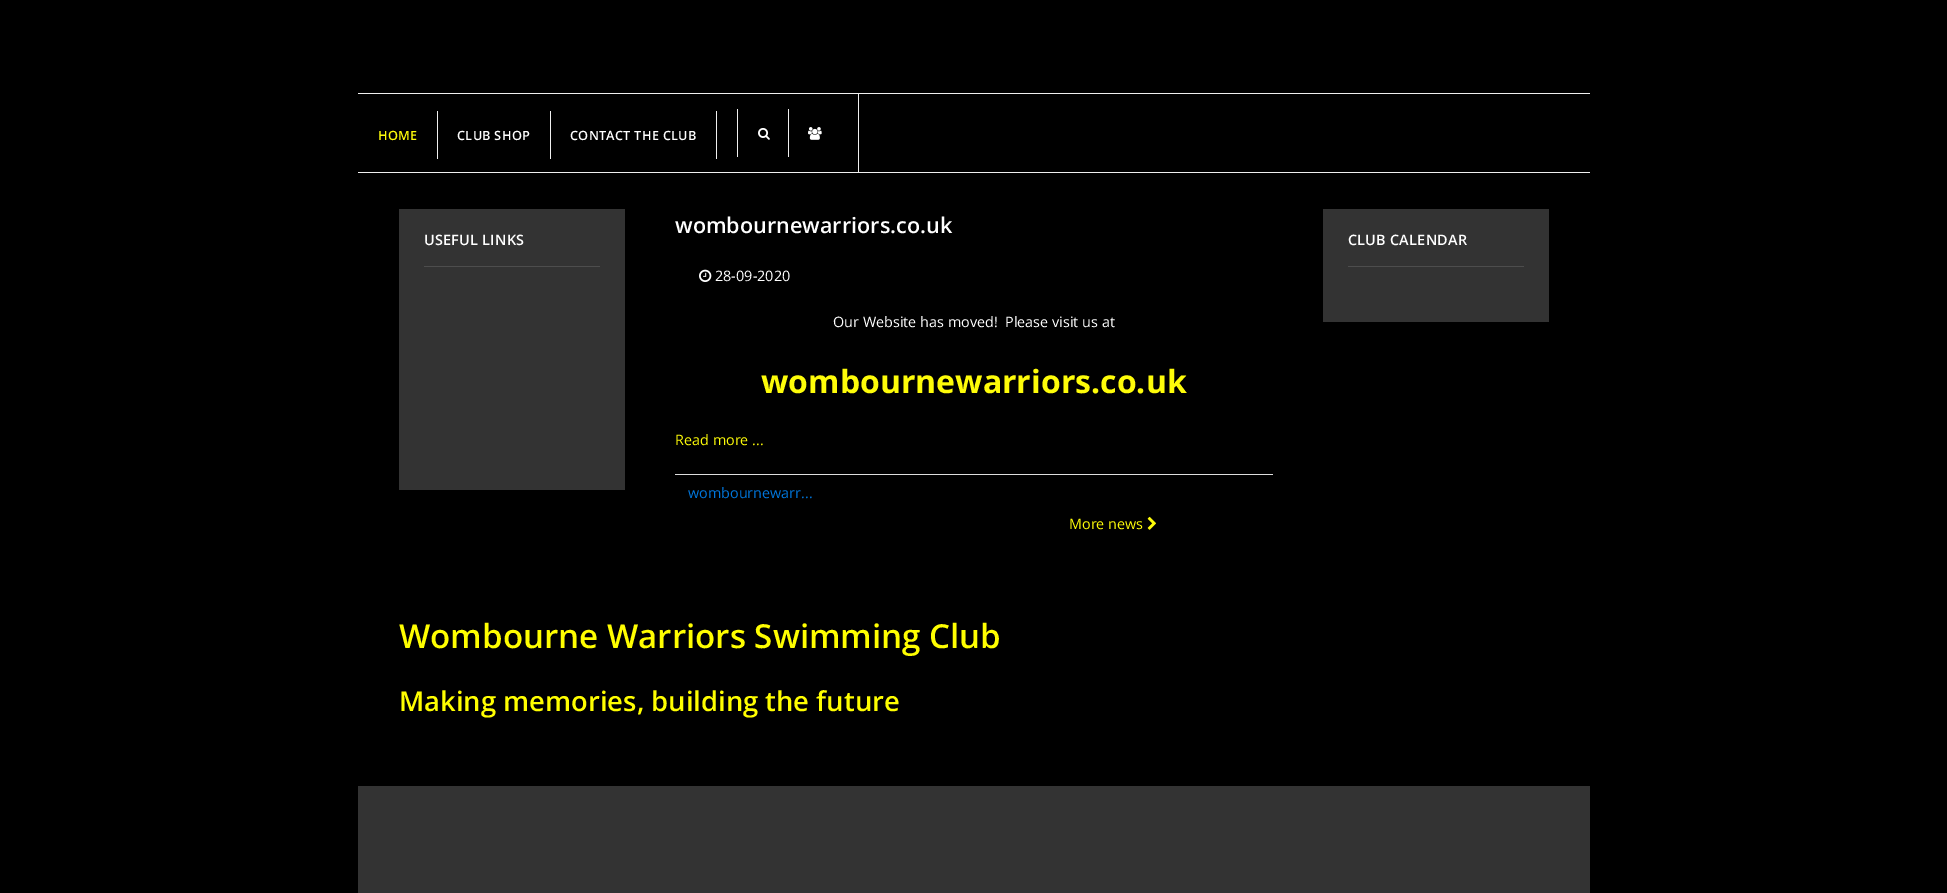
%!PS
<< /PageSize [1947 893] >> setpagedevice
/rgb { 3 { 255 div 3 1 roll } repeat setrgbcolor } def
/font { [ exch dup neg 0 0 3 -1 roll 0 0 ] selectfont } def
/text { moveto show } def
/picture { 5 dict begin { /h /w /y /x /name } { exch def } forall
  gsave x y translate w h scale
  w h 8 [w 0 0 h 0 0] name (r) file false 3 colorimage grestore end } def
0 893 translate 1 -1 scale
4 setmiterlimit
0 0 0 rgb
0 0 1947 893 rectfill
239 239 239 rgb
358 93 1232 1 rectfill
358 172 1232 1 rectfill
437 111 1 48 rectfill
550 111 1 48 rectfill
716 111 1 48 rectfill
858 94 1 78 rectfill
788 109 1 48 rectfill
737 109 1 48 rectfill
(img_01.rgb) 758 128 12 12 picture
(img_02.rgb) 808 127 14 13 picture
51 51 51 rgb
399 209 226 281 rectfill
77 77 77 rgb
424 266 176 1 rectfill
(img_03.rgb) 699 269 13 13 picture
221 221 221 rgb
675 474 598 1 rectfill
(img_04.rgb) 1147 516 9 14 picture
51 51 51 rgb
1323 209 226 113 rectfill
77 77 77 rgb
1348 266 176 1 rectfill
51 51 51 rgb
358 786 1232 107 rectfill
/OpenSans-SemiBold 12.75 font
254 252 9 rgb
378 140 moveto 0.25 0 (HOME) ashow
255 255 255 rgb
457 140 moveto 0.25 0 (CLUB SHOP) ashow
570 140 moveto 0.25 0 (CONTACT THE CLUB) ashow
/OpenSans-SemiBold 14.4 font
424 245 moveto 0.25 0 (USEFUL LINKS) ashow
/OpenSans-SemiBold 21.6 font
(wombournewarriors.co.uk) 675 233 text
/OpenSans-Regular 14.4 font
(28-09-2020) 715 281 text
(Our Website has moved!  Please visit us at) 833 327 text
/OpenSans-Bold 32 font
254 252 9 rgb
(wombournewarriors.co.uk) 761 393 text
/OpenSans-Regular 14.4 font
(Read more ...) 675 445 text
0 119 221 rgb
(wombournewarr...) 688 498 text
254 252 9 rgb
(More news) 1069 529 text
/OpenSans-SemiBold 14.4 font
255 255 255 rgb
1348 245 moveto 0.25 0 (CLUB CALENDAR) ashow
/OpenSans-SemiBold 33.1 font
255 254 0 rgb
(Wombourne Warriors Swimming Club) 399 648 text
/OpenSans-SemiBold 27.4 font
(Making memories, building the future) 399 711 text
showpage
